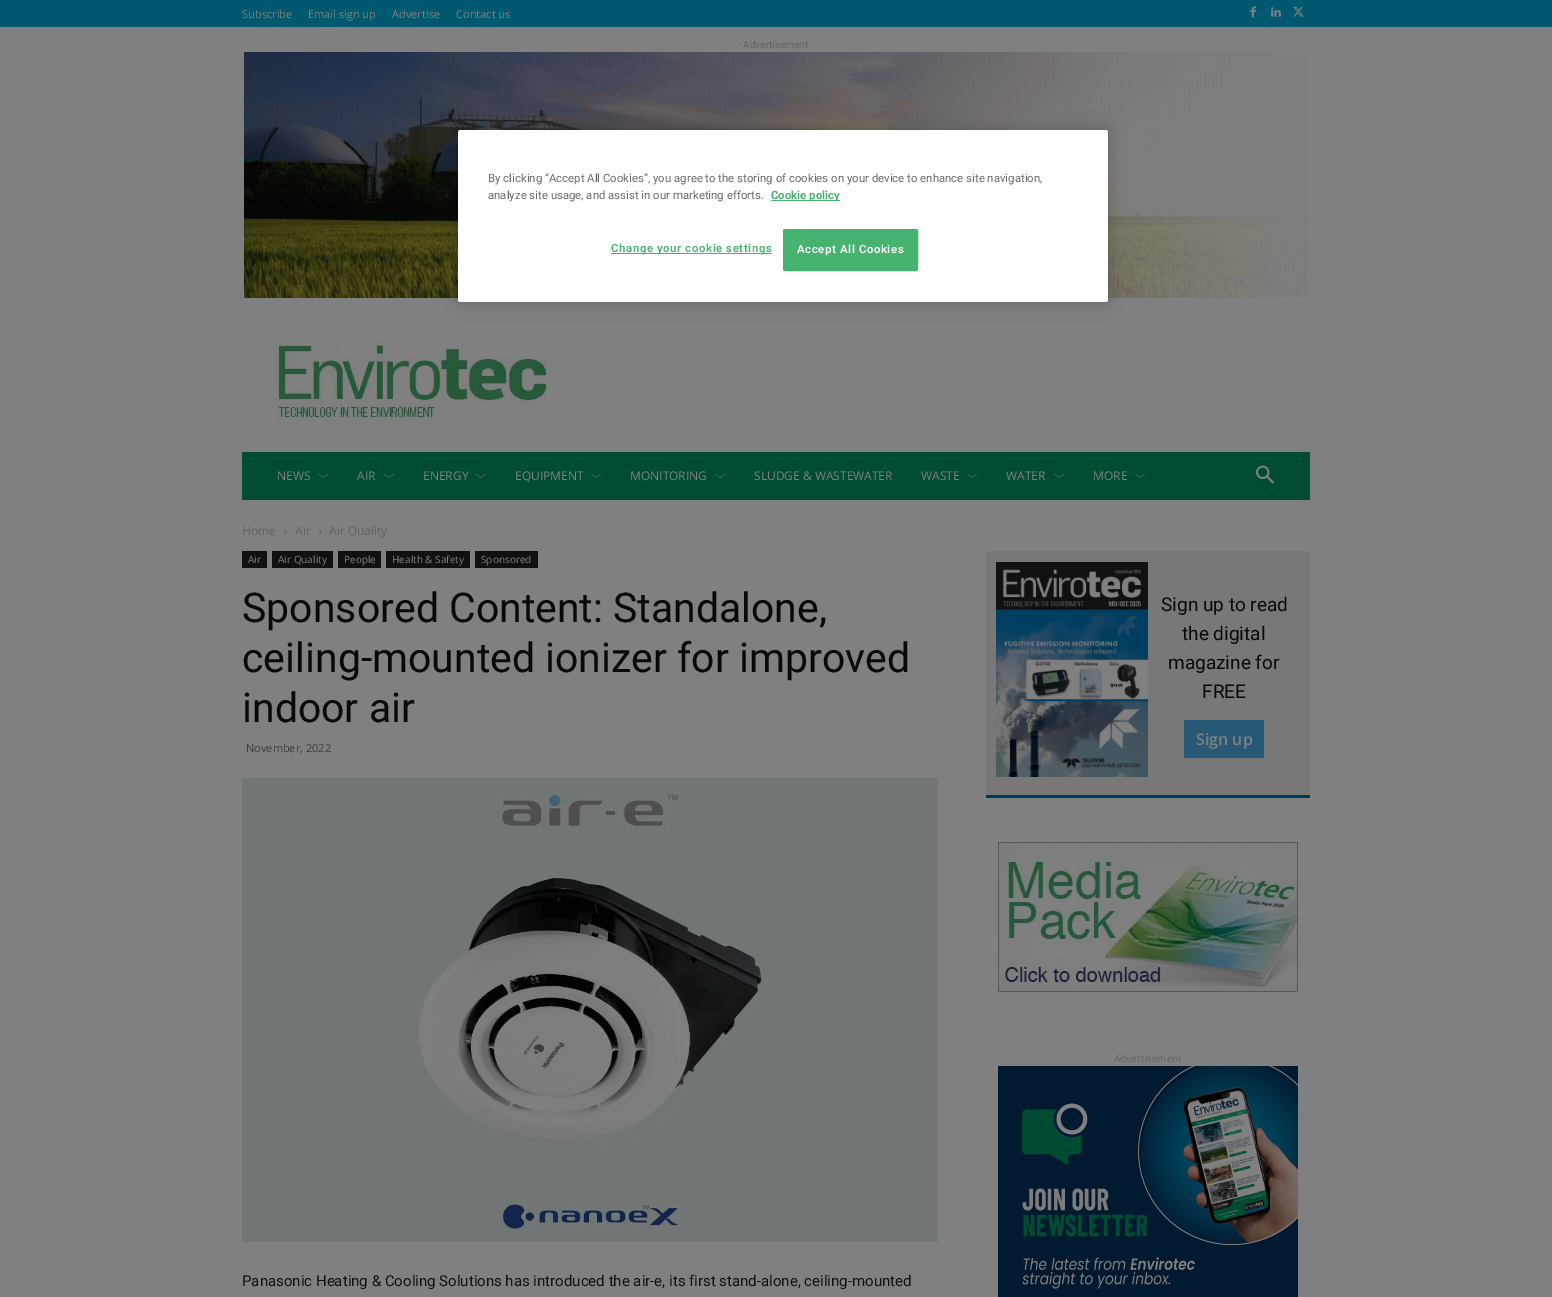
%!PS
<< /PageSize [1552 1297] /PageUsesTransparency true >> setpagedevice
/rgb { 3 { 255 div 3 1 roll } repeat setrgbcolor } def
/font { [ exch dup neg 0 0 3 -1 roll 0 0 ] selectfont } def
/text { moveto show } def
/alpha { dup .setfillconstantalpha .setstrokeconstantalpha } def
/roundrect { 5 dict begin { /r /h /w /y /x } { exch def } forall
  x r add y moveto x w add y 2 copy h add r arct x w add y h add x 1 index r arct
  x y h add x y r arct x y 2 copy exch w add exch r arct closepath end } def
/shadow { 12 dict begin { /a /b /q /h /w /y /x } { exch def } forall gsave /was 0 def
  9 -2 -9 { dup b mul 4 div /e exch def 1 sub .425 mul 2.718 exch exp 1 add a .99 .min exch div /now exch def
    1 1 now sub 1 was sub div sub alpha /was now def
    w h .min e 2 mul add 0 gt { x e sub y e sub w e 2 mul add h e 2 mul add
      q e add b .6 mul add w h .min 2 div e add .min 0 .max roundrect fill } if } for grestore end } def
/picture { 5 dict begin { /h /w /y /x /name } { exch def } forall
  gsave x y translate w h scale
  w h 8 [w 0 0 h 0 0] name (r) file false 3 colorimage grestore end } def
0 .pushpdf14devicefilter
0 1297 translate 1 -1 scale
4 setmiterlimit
128 128 128 rgb
0 0 1552 1297 rectfill
0 89 111 rgb
0 0 1552 27 rectfill
(img_01.rgb) 1250 6 6 12 picture
(img_02.rgb) 1271 7 10 10 picture
(img_03.rgb) 1293 6 11 11 picture
(img_04.rgb) 244 52 1064 246 picture
(img_05.rgb) 275 342 272 82 picture
0 77 51 rgb
242 452 1068 48 rectfill
(img_06.rgb) 317 473 12 5 picture
(img_06.rgb) 383 473 12 5 picture
(img_06.rgb) 475 473 12 5 picture
(img_06.rgb) 590 473 12 5 picture
(img_06.rgb) 714 473 12 5 picture
(img_06.rgb) 966 473 12 5 picture
(img_06.rgb) 1053 473 12 5 picture
(img_06.rgb) 1134 473 12 5 picture
(img_07.rgb) 1256 465 18 19 picture
(img_08.rgb) 284 529 3 5 picture
(img_08.rgb) 319 529 3 5 picture
17 17 17 rgb
242 551 25 17 rectfill
272 551 61 17 rectfill
338 551 43 17 rectfill
386 551 84 17 rectfill
475 551 63 17 rectfill
(img_09.rgb) 242 778 696 464 picture
120 120 120 rgb
986 551 324 244 rectfill
0 56 88 rgb
986 795 324 3 rectfill
(img_10.rgb) 996 562 152 215 picture
39 89 118 rgb
1184 720 80 38 rectfill
(img_11.rgb) 998 842 300 150 picture
(img_12.rgb) 998 1066 300 231 picture
0 0 0 rgb
458 130 650 172 2.5 9 0.2 shadow
255 255 255 rgb
458 130 650 172 2.5 roundrect fill
71 179 113 rgb
771 200 69 1 rectfill
611 253 161 1 rectfill
783.5 229.5 134 41 1.5 roundrect gsave fill grestore
stroke
/OpenSans-Regular 11 font
128 128 128 rgb
(Subscribe) 242 18 text
(Email sign up) 308 18 text
(Advertise) 392 18 text
(Contact us) 456 18 text
/Roboto-Regular 10 font
98 98 98 rgb
(- Advertisement -) 738 48 text
/OpenSans-Regular 12 font
128 128 128 rgb
(NEWS) 277 480 text
(AIR) 357 480 text
(ENERGY) 423 480 text
(EQUIPMENT) 515 480 text
(MONITORING) 630 480 text
(SLUDGE & WASTEWATER) 754 480 text
(WASTE) 921 480 text
(WATER) 1006 480 text
(MORE) 1093 480 text
98 98 98 rgb
(Home) 242 535 text
(Air) 295 535 text
(Air Quality) 329 535 text
/OpenSans-Regular 10 font
128 128 128 rgb
(Air) 248 563 text
(Air Quality) 278 563 text
(People) 344 563 text
(Health & Safety) 392 563 text
(Sponsored) 481 563 text
/Roboto-Regular 41 font
9 9 9 rgb
(Sponsored Content: Standalone,) 242 622 text
(ceiling-mounted ionizer for improved) 242 672 text
(indoor air) 242 722 text
/OpenSans-Regular 11 font
59 59 59 rgb
(November, 2022) 246 752 text
/Roboto-Regular 15 font
17 17 17 rgb
(Panasonic Heating & Cooling Solutions has introduced the air-e, its first stand-alone, ceiling-mounted) 242 1286 text
/Roboto-Regular 19 font
9 9 9 rgb
(Sign up to read) 1161 611 text
(the digital) 1182 640 text
(magazine for) 1168 669 text
(FREE) 1202 698 text
/OpenSans-SemiBold 16 font
128 128 128 rgb
(Sign up) 1196 745 text
/OpenSans-Regular 10 font
98 98 98 rgb
(- Advertisement -) 1108 1062 text
/Roboto-Regular 11.4 font
105 105 105 rgb
(By clicking “Accept All Cookies”, you agree to the storing of cookies on your device to enhance site navigation,) 488 182 text
(analyze site usage, and assist in our marketing efforts.) 488 199 text
/Roboto-Bold 11.4 font
71 179 113 rgb
(Cookie policy) 771 199 text
/Roboto-SemiBold 11.4 font
611 252 moveto 0.6 0 (Change your cookie settings) ashow
255 255 255 rgb
797 253 moveto 0.6 0 (Accept All Cookies) ashow
.poppdf14devicefilter showpage
